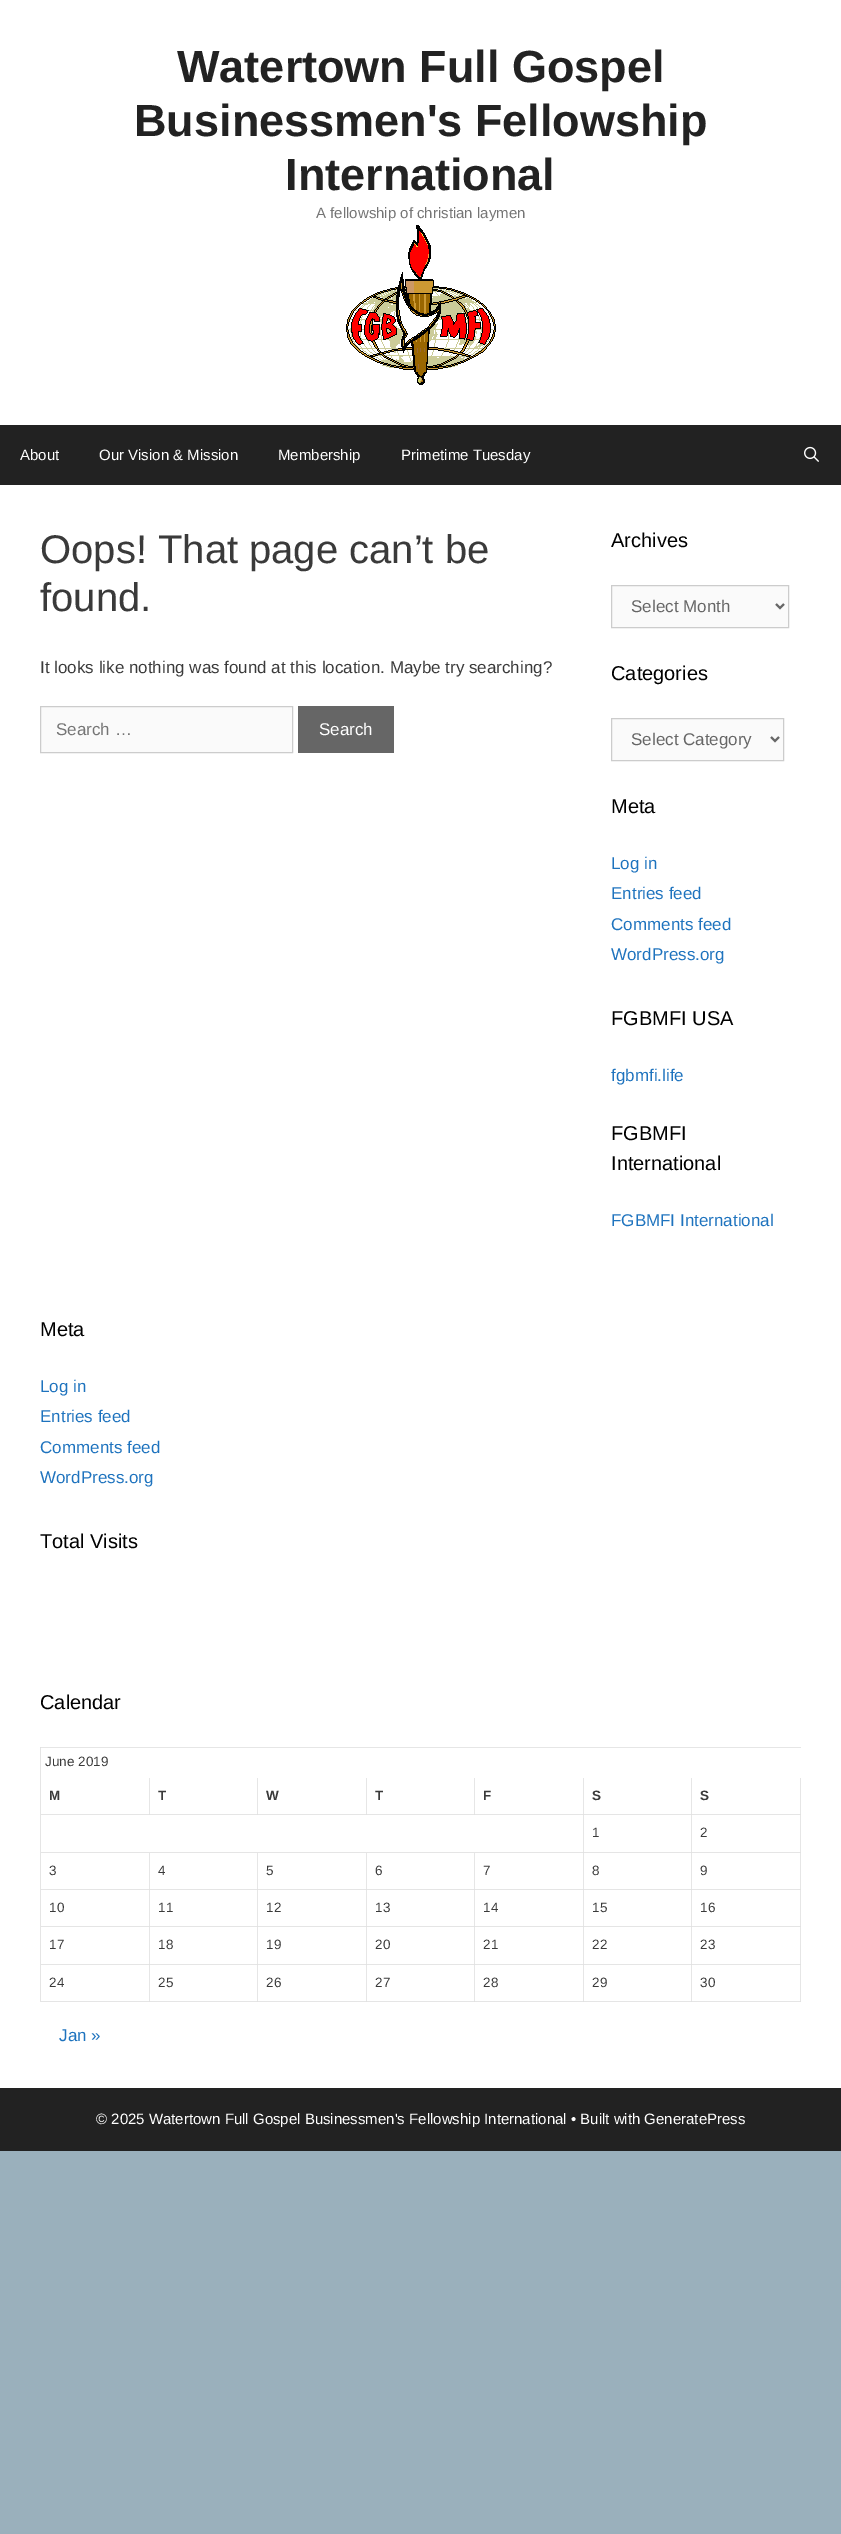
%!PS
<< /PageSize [841 2534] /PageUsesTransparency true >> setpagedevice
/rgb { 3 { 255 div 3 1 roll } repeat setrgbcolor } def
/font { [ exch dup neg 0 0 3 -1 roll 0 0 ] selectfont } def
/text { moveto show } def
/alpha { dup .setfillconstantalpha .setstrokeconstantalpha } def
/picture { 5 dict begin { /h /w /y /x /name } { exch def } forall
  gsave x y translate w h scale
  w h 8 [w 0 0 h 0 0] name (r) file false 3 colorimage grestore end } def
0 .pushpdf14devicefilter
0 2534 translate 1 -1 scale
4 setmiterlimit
154 176 188 rgb
0 0 841 2534 rectfill
255 255 255 rgb
0 0 841 425 rectfill
(img_01.rgb) 346 225 150 160 picture
34 34 34 rgb
0 425 841 60 rectfill
(img_02.rgb) 804 446 15 16 picture
255 255 255 rgb
0 485 841 1603 rectfill
250 250 250 rgb
40.5 706.5 moveto 252 0 rlineto 0 46 rlineto -252 0 rlineto closepath gsave fill grestore
204 204 204 rgb
stroke
102 102 102 rgb
298 706 96 47 rectfill
250 250 250 rgb
611.5 585.5 moveto 177 0 rlineto 0 42 rlineto -177 0 rlineto closepath gsave fill grestore
204 204 204 rgb
stroke
102 102 102 rgb
2 setlinewidth
776 604 moveto 4 4 rlineto 4 -4 rlineto stroke
250 250 250 rgb
611.5 718.5 moveto 172 0 rlineto 0 42 rlineto -172 0 rlineto closepath gsave fill grestore
204 204 204 rgb
1 setlinewidth
stroke
102 102 102 rgb
2 setlinewidth
771 737 moveto 4 4 rlineto 4 -4 rlineto stroke
230 230 230 rgb
40 1747 moveto 761 0 rlineto 0 1 rlineto -760 0 rlineto closepath fill
0.1 alpha
0 0 0 rgb
40 2002 moveto 0 -255 rlineto 1 1 rlineto 0 254 rlineto closepath fill
1 alpha
230 230 230 rgb
150 1778 moveto 0 37 rlineto -1 -1 rlineto 0 -36 rlineto closepath fill
0.1 alpha
0 0 0 rgb
150 1815 moveto -109 0 rlineto 0 -1 rlineto 108 0 rlineto closepath fill
1 alpha
230 230 230 rgb
258 1778 moveto 0 37 rlineto -1 -1 rlineto 0 -36 rlineto closepath fill
0.1 alpha
0 0 0 rgb
258 1815 moveto -108 0 rlineto 0 -1 rlineto 107 0 rlineto closepath fill
1 alpha
230 230 230 rgb
367 1778 moveto 0 37 rlineto -1 -1 rlineto 0 -36 rlineto closepath fill
0.1 alpha
0 0 0 rgb
367 1815 moveto -109 0 rlineto 0 -1 rlineto 108 0 rlineto closepath fill
1 alpha
230 230 230 rgb
475 1778 moveto 0 37 rlineto -1 -1 rlineto 0 -36 rlineto closepath fill
0.1 alpha
0 0 0 rgb
475 1815 moveto -108 0 rlineto 0 -1 rlineto 107 0 rlineto closepath fill
1 alpha
230 230 230 rgb
584 1778 moveto 0 37 rlineto -1 -1 rlineto 0 -36 rlineto closepath fill
0.1 alpha
0 0 0 rgb
584 1815 moveto -109 0 rlineto 0 -1 rlineto 108 0 rlineto closepath fill
1 alpha
230 230 230 rgb
692 1778 moveto 0 37 rlineto -1 -1 rlineto 0 -36 rlineto closepath fill
0.1 alpha
0 0 0 rgb
692 1815 moveto -108 0 rlineto 0 -1 rlineto 107 0 rlineto closepath fill
1 alpha
230 230 230 rgb
801 1778 moveto 0 37 rlineto -1 -1 rlineto 0 -36 rlineto closepath fill
0.1 alpha
0 0 0 rgb
801 1815 moveto -109 0 rlineto 0 -1 rlineto 108 0 rlineto closepath fill
1 alpha
230 230 230 rgb
584 1815 moveto 0 38 rlineto -1 -1 rlineto 0 -37 rlineto closepath fill
0.1 alpha
0 0 0 rgb
584 1853 moveto -543 0 rlineto 0 -1 rlineto 542 0 rlineto closepath fill
1 alpha
230 230 230 rgb
692 1815 moveto 0 38 rlineto -1 -1 rlineto 0 -37 rlineto closepath fill
0.1 alpha
0 0 0 rgb
692 1853 moveto -108 0 rlineto 0 -1 rlineto 107 0 rlineto closepath fill
1 alpha
230 230 230 rgb
801 1815 moveto 0 38 rlineto -1 -1 rlineto 0 -37 rlineto closepath fill
0.1 alpha
0 0 0 rgb
801 1853 moveto -109 0 rlineto 0 -1 rlineto 108 0 rlineto closepath fill
1 alpha
230 230 230 rgb
150 1853 moveto 0 37 rlineto -1 -1 rlineto 0 -36 rlineto closepath fill
0.1 alpha
0 0 0 rgb
150 1890 moveto -109 0 rlineto 0 -1 rlineto 108 0 rlineto closepath fill
1 alpha
230 230 230 rgb
258 1853 moveto 0 37 rlineto -1 -1 rlineto 0 -36 rlineto closepath fill
0.1 alpha
0 0 0 rgb
258 1890 moveto -108 0 rlineto 0 -1 rlineto 107 0 rlineto closepath fill
1 alpha
230 230 230 rgb
367 1853 moveto 0 37 rlineto -1 -1 rlineto 0 -36 rlineto closepath fill
0.1 alpha
0 0 0 rgb
367 1890 moveto -109 0 rlineto 0 -1 rlineto 108 0 rlineto closepath fill
1 alpha
230 230 230 rgb
475 1853 moveto 0 37 rlineto -1 -1 rlineto 0 -36 rlineto closepath fill
0.1 alpha
0 0 0 rgb
475 1890 moveto -108 0 rlineto 0 -1 rlineto 107 0 rlineto closepath fill
1 alpha
230 230 230 rgb
584 1853 moveto 0 37 rlineto -1 -1 rlineto 0 -36 rlineto closepath fill
0.1 alpha
0 0 0 rgb
584 1890 moveto -109 0 rlineto 0 -1 rlineto 108 0 rlineto closepath fill
1 alpha
230 230 230 rgb
692 1853 moveto 0 37 rlineto -1 -1 rlineto 0 -36 rlineto closepath fill
0.1 alpha
0 0 0 rgb
692 1890 moveto -108 0 rlineto 0 -1 rlineto 107 0 rlineto closepath fill
1 alpha
230 230 230 rgb
801 1853 moveto 0 37 rlineto -1 -1 rlineto 0 -36 rlineto closepath fill
0.1 alpha
0 0 0 rgb
801 1890 moveto -109 0 rlineto 0 -1 rlineto 108 0 rlineto closepath fill
1 alpha
230 230 230 rgb
150 1890 moveto 0 37 rlineto -1 -1 rlineto 0 -36 rlineto closepath fill
0.1 alpha
0 0 0 rgb
150 1927 moveto -109 0 rlineto 0 -1 rlineto 108 0 rlineto closepath fill
1 alpha
230 230 230 rgb
258 1890 moveto 0 37 rlineto -1 -1 rlineto 0 -36 rlineto closepath fill
0.1 alpha
0 0 0 rgb
258 1927 moveto -108 0 rlineto 0 -1 rlineto 107 0 rlineto closepath fill
1 alpha
230 230 230 rgb
367 1890 moveto 0 37 rlineto -1 -1 rlineto 0 -36 rlineto closepath fill
0.1 alpha
0 0 0 rgb
367 1927 moveto -109 0 rlineto 0 -1 rlineto 108 0 rlineto closepath fill
1 alpha
230 230 230 rgb
475 1890 moveto 0 37 rlineto -1 -1 rlineto 0 -36 rlineto closepath fill
0.1 alpha
0 0 0 rgb
475 1927 moveto -108 0 rlineto 0 -1 rlineto 107 0 rlineto closepath fill
1 alpha
230 230 230 rgb
584 1890 moveto 0 37 rlineto -1 -1 rlineto 0 -36 rlineto closepath fill
0.1 alpha
0 0 0 rgb
584 1927 moveto -109 0 rlineto 0 -1 rlineto 108 0 rlineto closepath fill
1 alpha
230 230 230 rgb
692 1890 moveto 0 37 rlineto -1 -1 rlineto 0 -36 rlineto closepath fill
0.1 alpha
0 0 0 rgb
692 1927 moveto -108 0 rlineto 0 -1 rlineto 107 0 rlineto closepath fill
1 alpha
230 230 230 rgb
801 1890 moveto 0 37 rlineto -1 -1 rlineto 0 -36 rlineto closepath fill
0.1 alpha
0 0 0 rgb
801 1927 moveto -109 0 rlineto 0 -1 rlineto 108 0 rlineto closepath fill
1 alpha
230 230 230 rgb
150 1927 moveto 0 38 rlineto -1 -1 rlineto 0 -37 rlineto closepath fill
0.1 alpha
0 0 0 rgb
150 1965 moveto -109 0 rlineto 0 -1 rlineto 108 0 rlineto closepath fill
1 alpha
230 230 230 rgb
258 1927 moveto 0 38 rlineto -1 -1 rlineto 0 -37 rlineto closepath fill
0.1 alpha
0 0 0 rgb
258 1965 moveto -108 0 rlineto 0 -1 rlineto 107 0 rlineto closepath fill
1 alpha
230 230 230 rgb
367 1927 moveto 0 38 rlineto -1 -1 rlineto 0 -37 rlineto closepath fill
0.1 alpha
0 0 0 rgb
367 1965 moveto -109 0 rlineto 0 -1 rlineto 108 0 rlineto closepath fill
1 alpha
230 230 230 rgb
475 1927 moveto 0 38 rlineto -1 -1 rlineto 0 -37 rlineto closepath fill
0.1 alpha
0 0 0 rgb
475 1965 moveto -108 0 rlineto 0 -1 rlineto 107 0 rlineto closepath fill
1 alpha
230 230 230 rgb
584 1927 moveto 0 38 rlineto -1 -1 rlineto 0 -37 rlineto closepath fill
0.1 alpha
0 0 0 rgb
584 1965 moveto -109 0 rlineto 0 -1 rlineto 108 0 rlineto closepath fill
1 alpha
230 230 230 rgb
692 1927 moveto 0 38 rlineto -1 -1 rlineto 0 -37 rlineto closepath fill
0.1 alpha
0 0 0 rgb
692 1965 moveto -108 0 rlineto 0 -1 rlineto 107 0 rlineto closepath fill
1 alpha
230 230 230 rgb
801 1927 moveto 0 38 rlineto -1 -1 rlineto 0 -37 rlineto closepath fill
0.1 alpha
0 0 0 rgb
801 1965 moveto -109 0 rlineto 0 -1 rlineto 108 0 rlineto closepath fill
1 alpha
230 230 230 rgb
150 1965 moveto 0 37 rlineto -1 -1 rlineto 0 -36 rlineto closepath fill
0.1 alpha
0 0 0 rgb
150 2002 moveto -109 0 rlineto 0 -1 rlineto 108 0 rlineto closepath fill
1 alpha
230 230 230 rgb
258 1965 moveto 0 37 rlineto -1 -1 rlineto 0 -36 rlineto closepath fill
0.1 alpha
0 0 0 rgb
258 2002 moveto -108 0 rlineto 0 -1 rlineto 107 0 rlineto closepath fill
1 alpha
230 230 230 rgb
367 1965 moveto 0 37 rlineto -1 -1 rlineto 0 -36 rlineto closepath fill
0.1 alpha
0 0 0 rgb
367 2002 moveto -109 0 rlineto 0 -1 rlineto 108 0 rlineto closepath fill
1 alpha
230 230 230 rgb
475 1965 moveto 0 37 rlineto -1 -1 rlineto 0 -36 rlineto closepath fill
0.1 alpha
0 0 0 rgb
475 2002 moveto -108 0 rlineto 0 -1 rlineto 107 0 rlineto closepath fill
1 alpha
230 230 230 rgb
584 1965 moveto 0 37 rlineto -1 -1 rlineto 0 -36 rlineto closepath fill
0.1 alpha
0 0 0 rgb
584 2002 moveto -109 0 rlineto 0 -1 rlineto 108 0 rlineto closepath fill
1 alpha
230 230 230 rgb
692 1965 moveto 0 37 rlineto -1 -1 rlineto 0 -36 rlineto closepath fill
0.1 alpha
0 0 0 rgb
692 2002 moveto -108 0 rlineto 0 -1 rlineto 107 0 rlineto closepath fill
1 alpha
230 230 230 rgb
801 1965 moveto 0 37 rlineto -1 -1 rlineto 0 -36 rlineto closepath fill
0.1 alpha
0 0 0 rgb
801 2002 moveto -109 0 rlineto 0 -1 rlineto 108 0 rlineto closepath fill
1 alpha
34 34 34 rgb
0 2088 841 63 rectfill
/LiberationSans-Bold 45 font
(Watertown Full Gospel) 177 82 text
(Businessmen's Fellowship) 134 136 text
(International) 285 190 text
/LiberationSans-Regular 15 font
117 117 117 rgb
(A fellowship of christian laymen) 316 218 text
255 255 255 rgb
(About) 20 460 text
(Our Vision & Mission) 99 460 text
(Membership) 278 460 text
(Primetime Tuesday) 401 460 text
/LiberationSans-Regular 40 font
58 58 58 rgb
(Oops! That page can’t be) 40 563 text
(found.) 40 611 text
/LiberationSans-Regular 17 font
(It looks like nothing was found at this location. Maybe try searching?) 40 673 text
117 117 117 rgb
(Search …) 56 735 text
255 255 255 rgb
(Search) 319 735 text
/LiberationSans-Regular 20 font
0 0 0 rgb
(Archives) 611 547 text
/LiberationSans-Regular 17 font
102 102 102 rgb
(Select Month) 631 612 text
/LiberationSans-Regular 20 font
0 0 0 rgb
(Categories) 611 680 text
/LiberationSans-Regular 17 font
102 102 102 rgb
(Select Category) 631 745 text
/LiberationSans-Regular 20 font
0 0 0 rgb
(Meta) 611 813 text
/LiberationSans-Regular 17 font
30 115 190 rgb
(Log in) 611 869 text
(Entries feed) 611 899 text
(Comments feed) 611 930 text
(WordPress.org) 611 960 text
/LiberationSans-Regular 20 font
0 0 0 rgb
(FGBMFI USA) 611 1025 text
/LiberationSans-Regular 17 font
30 115 190 rgb
(fgbmfi.life) 611 1081 text
/LiberationSans-Regular 20 font
0 0 0 rgb
(FGBMFI) 611 1140 text
(International) 611 1170 text
/LiberationSans-Regular 17 font
30 115 190 rgb
(FGBMFI International) 611 1226 text
/LiberationSans-Regular 20 font
0 0 0 rgb
(Meta) 40 1336 text
/LiberationSans-Regular 17 font
30 115 190 rgb
(Log in) 40 1392 text
(Entries feed) 40 1422 text
(Comments feed) 40 1453 text
(WordPress.org) 40 1483 text
/LiberationSans-Regular 20 font
0 0 0 rgb
(Total Visits) 40 1548 text
(Calendar) 40 1709 text
/LiberationSans-Regular 13.5 font
58 58 58 rgb
(June 2019) 45 1766 text
/LiberationSans-Bold 13.5 font
(M) 49 1800 text
(T) 158 1800 text
(W) 266 1800 text
(T) 375 1800 text
(F) 483 1800 text
(S) 592 1800 text
(S) 700 1800 text
/LiberationSans-Regular 13.5 font
(1) 592 1837 text
(2) 700 1837 text
(3) 49 1875 text
(4) 158 1875 text
(5) 266 1875 text
(6) 375 1875 text
(7) 483 1875 text
(8) 592 1875 text
(9) 700 1875 text
(10) 49 1912 text
(11) 158 1912 text
(12) 266 1912 text
(13) 375 1912 text
(14) 483 1912 text
(15) 592 1912 text
(16) 700 1912 text
(17) 49 1949 text
(18) 158 1949 text
(19) 266 1949 text
(20) 375 1949 text
(21) 483 1949 text
(22) 592 1949 text
(23) 700 1949 text
(24) 49 1987 text
(25) 158 1987 text
(26) 266 1987 text
(27) 375 1987 text
(28) 483 1987 text
(29) 592 1987 text
(30) 700 1987 text
/LiberationSans-Regular 17 font
30 115 190 rgb
(Jan ») 59 2041 text
/LiberationSans-Regular 15 font
255 255 255 rgb
(© 2025 Watertown Full Gospel Businessmen's Fellowship International • Built with GeneratePress) 96 2124 text
.poppdf14devicefilter showpage
